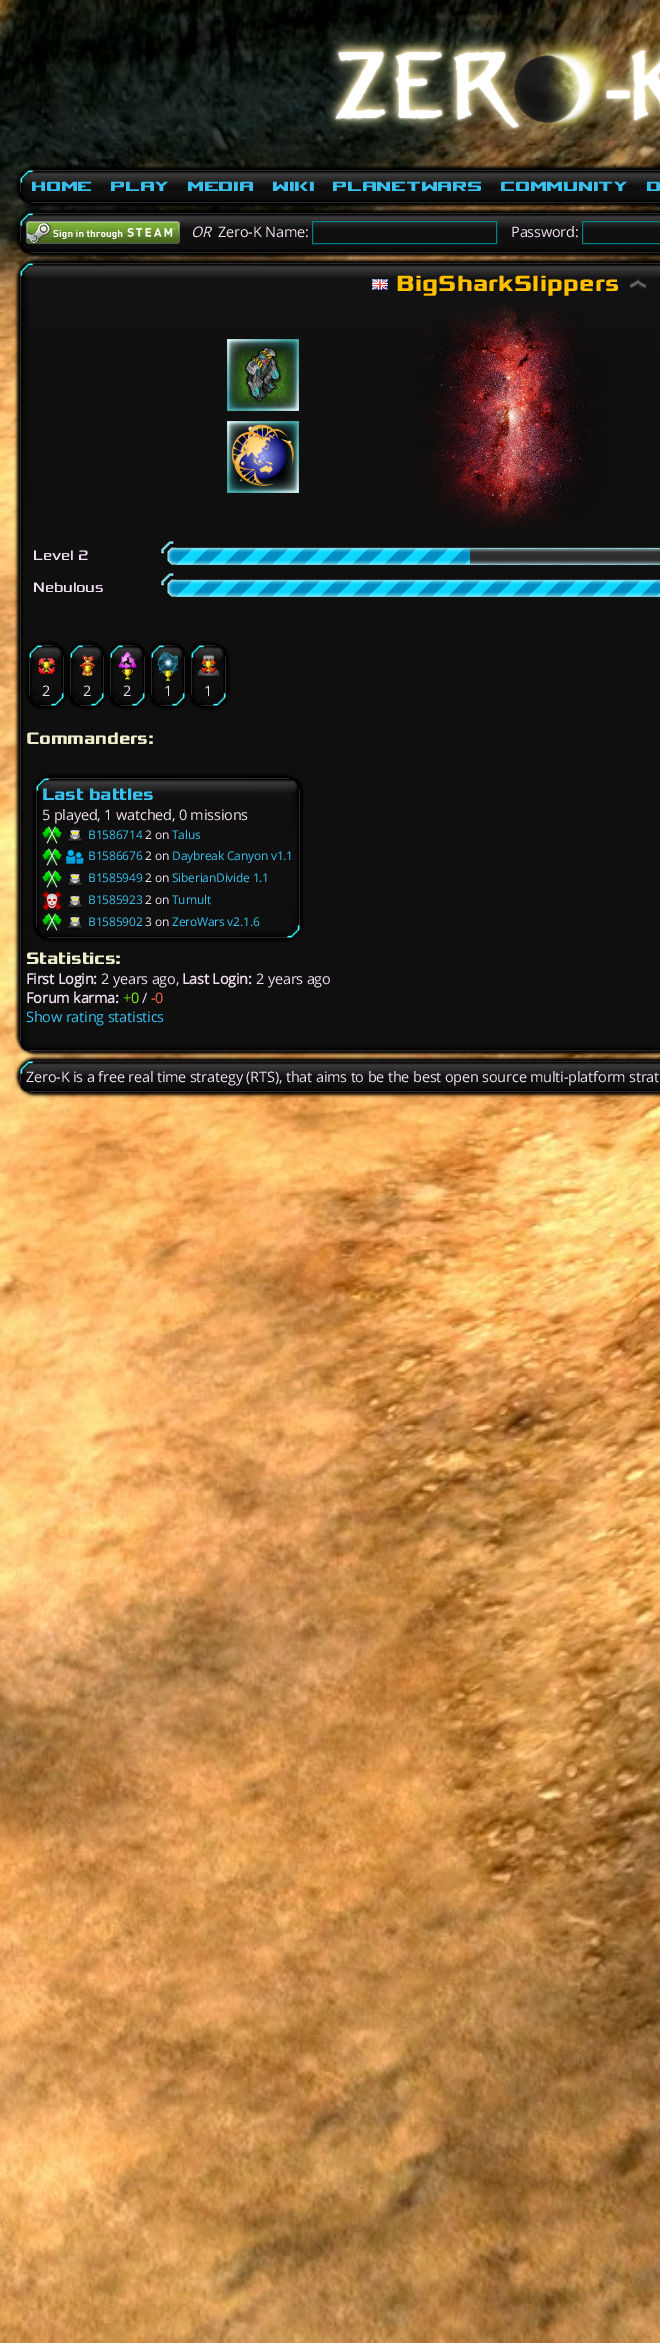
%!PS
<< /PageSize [660 2343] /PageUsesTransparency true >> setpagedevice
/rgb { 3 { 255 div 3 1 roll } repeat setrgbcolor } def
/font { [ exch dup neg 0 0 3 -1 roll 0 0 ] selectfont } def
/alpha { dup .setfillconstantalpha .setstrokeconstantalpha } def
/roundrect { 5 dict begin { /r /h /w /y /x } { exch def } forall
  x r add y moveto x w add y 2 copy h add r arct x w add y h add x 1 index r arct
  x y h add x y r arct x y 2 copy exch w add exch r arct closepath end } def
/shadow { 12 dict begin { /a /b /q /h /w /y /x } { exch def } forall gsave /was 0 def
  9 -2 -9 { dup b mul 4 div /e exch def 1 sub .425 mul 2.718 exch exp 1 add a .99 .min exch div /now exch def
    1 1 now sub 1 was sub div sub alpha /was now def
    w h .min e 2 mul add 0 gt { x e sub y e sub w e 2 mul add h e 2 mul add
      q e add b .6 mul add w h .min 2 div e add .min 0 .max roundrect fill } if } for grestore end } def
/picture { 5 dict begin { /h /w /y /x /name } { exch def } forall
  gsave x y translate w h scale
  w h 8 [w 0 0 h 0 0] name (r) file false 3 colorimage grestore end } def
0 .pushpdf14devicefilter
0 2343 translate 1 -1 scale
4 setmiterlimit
255 255 255 rgb
0 0 660 2343 rectfill
(img_01.rgb) 0 0 660 2343 picture
(img_02.rgb) 326 33 334 105 picture
0 0 0 rgb
17 167 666 39 18 1.5 1 shadow
51 51 51 rgb
20 170 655 33 15 roundrect fill
(img_03.rgb) 20 170 640 33 picture
0 0 0 rgb
17 210 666 46 18 1.5 1 shadow
51 51 51 rgb
20 213 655 40 15 roundrect fill
(img_04.rgb) 20 213 640 40 picture
(img_05.rgb) 26 221 154 23 picture
0 128 128 rgb
312.5 221.5 184 22 rectstroke
582.5 221.5 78 22 rectstroke
0 0 0 rgb
17 260 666 794 18 1.5 1 shadow
51 51 51 rgb
20 263 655 788 15 roundrect fill
(img_06.rgb) 20 263 640 788 picture
(img_07.rgb) 372 279 16 11 picture
(img_08.rgb) 630 278 16 12 picture
(img_09.rgb) 412 300 194 232 picture
(img_10.rgb) 227 339 72 72 picture
(img_11.rgb) 231 344 64 62 picture
(img_10.rgb) 227 421 72 72 picture
(img_12.rgb) 231 424 64 62 picture
(img_13.rgb) 161 541 15 24 picture
(img_14.rgb) 176 547 294 19 picture
(img_15.rgb) 470 547 190 19 picture
(img_13.rgb) 161 573 15 24 picture
(img_16.rgb) 176 579 484 19 picture
0 0 0 rgb
26 642 41 67 18 1.5 1 shadow
51 51 51 rgb
29 645 35 61 15 roundrect fill
(img_17.rgb) 29 645 35 61 picture
(img_18.rgb) 38 657 17 18 picture
0 0 0 rgb
67 642 40 67 18 1.5 1 shadow
51 51 51 rgb
70 645 34 61 15 roundrect fill
(img_19.rgb) 70 645 34 61 picture
(img_20.rgb) 79 655 16 21 picture
0 0 0 rgb
107 642 41 67 18 1.5 1 shadow
51 51 51 rgb
110 645 35 61 15 roundrect fill
(img_21.rgb) 110 645 35 61 picture
(img_22.rgb) 118 651 19 29 picture
0 0 0 rgb
148 642 40 67 18 1.5 1 shadow
51 51 51 rgb
151 645 34 61 15 roundrect fill
(img_23.rgb) 151 645 34 61 picture
(img_24.rgb) 157 651 22 30 picture
0 0 0 rgb
188 642 41 67 18 1.5 1 shadow
51 51 51 rgb
191 645 35 61 15 roundrect fill
(img_25.rgb) 191 645 35 61 picture
(img_26.rgb) 197 655 23 21 picture
0 0 0 rgb
33 775 270 166 18 1.5 1 shadow
51 51 51 rgb
36 778 264 160 15 roundrect fill
(img_27.rgb) 36 778 264 160 picture
(img_28.rgb) 42 826 20 18 picture
(img_29.rgb) 68 827 14 16 picture
(img_30.rgb) 42 848 20 18 picture
(img_31.rgb) 65 849 19 15 picture
(img_30.rgb) 42 870 20 18 picture
(img_29.rgb) 68 871 14 16 picture
(img_32.rgb) 42 891 20 19 picture
(img_29.rgb) 68 893 14 16 picture
(img_33.rgb) 42 913 20 18 picture
(img_34.rgb) 68 914 14 16 picture
0 0 0 rgb
17 1058 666 37 18 1.5 1 shadow
51 51 51 rgb
20 1061 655 31 15 roundrect fill
(img_35.rgb) 20 1061 640 31 picture
/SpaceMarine-Regular 15 font
56 191 236 rgb
31 192 moveto -0.2 0 (Home) ashow
110 192 moveto -0.2 0 (Play) ashow
187 192 moveto -0.2 0 (Media) ashow
272 192 moveto -0.2 0 (Wiki) ashow
332 192 moveto -0.2 0 (PlanetWars) ashow
500 192 moveto -0.2 0 (Community) ashow
646 192 moveto -0.2 0 (D) ashow
/OpenSans-Italic 14.5 font
238 221 238 rgb
191 237 moveto -0.2 0 (OR) ashow
/OpenSans-Regular 14.5 font
218 237 moveto -0.2 0 (Zero-K Name:) ashow
511 237 moveto -0.2 0 (Password:) ashow
/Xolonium-Bold 23.25 font
255 191 0 rgb
396 291 moveto 0.25 0 (BigSharkSlippers) ashow
/Xolonium-Regular 14.5 font
238 221 238 rgb
33 560 moveto -0.2 0 (Level 2) ashow
33 592 moveto -0.2 0 (Nebulous) ashow
/OpenSans-Regular 14.5 font
42 696 moveto -0.2 0 (2) ashow
83 696 moveto -0.2 0 (2) ashow
123 696 moveto -0.2 0 (2) ashow
164 696 moveto -0.2 0 (1) ashow
204 696 moveto -0.2 0 (1) ashow
/Xolonium-Bold 17.5 font
238 238 204 rgb
26 744 moveto -0.2 0 (Commanders:) ashow
56 191 236 rgb
42 800 moveto -0.2 0 (Last battles) ashow
/OpenSans-Regular 14.5 font
238 221 238 rgb
42 820 moveto -0.2 0 (5 played, 1 watched, 0 missions) ashow
/OpenSans-Regular 12 font
56 191 236 rgb
88 839 moveto -0.2 0 (B1586714) ashow
238 221 238 rgb
145 839 moveto -0.2 0 (2 on) ashow
56 191 236 rgb
172 839 moveto -0.2 0 (Talus) ashow
88 860 moveto -0.2 0 (B1586676) ashow
238 221 238 rgb
145 860 moveto -0.2 0 (2 on) ashow
56 191 236 rgb
172 860 moveto -0.2 0 (Daybreak Canyon v1.1) ashow
88 882 moveto -0.2 0 (B1585949) ashow
238 221 238 rgb
145 882 moveto -0.2 0 (2 on) ashow
56 191 236 rgb
172 882 moveto -0.2 0 (SiberianDivide 1.1) ashow
88 904 moveto -0.2 0 (B1585923) ashow
238 221 238 rgb
145 904 moveto -0.2 0 (2 on) ashow
56 191 236 rgb
172 904 moveto -0.2 0 (Tumult) ashow
88 926 moveto -0.2 0 (B1585902) ashow
238 221 238 rgb
145 926 moveto -0.2 0 (3 on) ashow
56 191 236 rgb
172 926 moveto -0.2 0 (ZeroWars v2.1.6) ashow
/Xolonium-Bold 17.5 font
238 238 204 rgb
26 964 moveto -0.2 0 (Statistics:) ashow
/OpenSans-Bold 14.5 font
238 221 238 rgb
26 984 moveto -0.2 0 (First Login:) ashow
/OpenSans-Regular 14.5 font
101 984 moveto -0.2 0 (2 years ago,) ashow
/OpenSans-Bold 14.5 font
182 984 moveto -0.2 0 (Last Login:) ashow
/OpenSans-Regular 14.5 font
256 984 moveto -0.2 0 (2 years ago) ashow
/OpenSans-Bold 14.5 font
26 1003 moveto -0.2 0 (Forum karma:) ashow
/OpenSans-Regular 14.5 font
124 252 0 rgb
123 1003 moveto -0.2 0 (+0) ashow
238 221 238 rgb
142 1003 moveto -0.2 0 (/) ashow
255 99 71 rgb
151 1003 moveto -0.2 0 (-0) ashow
56 191 236 rgb
26 1022 moveto -0.2 0 (Show rating statistics) ashow
238 221 238 rgb
26 1082 moveto -0.2 0 (Zero-K is a free real time strategy \(RTS\), that aims to be the best open source multi-platform strat) ashow
.poppdf14devicefilter showpage
